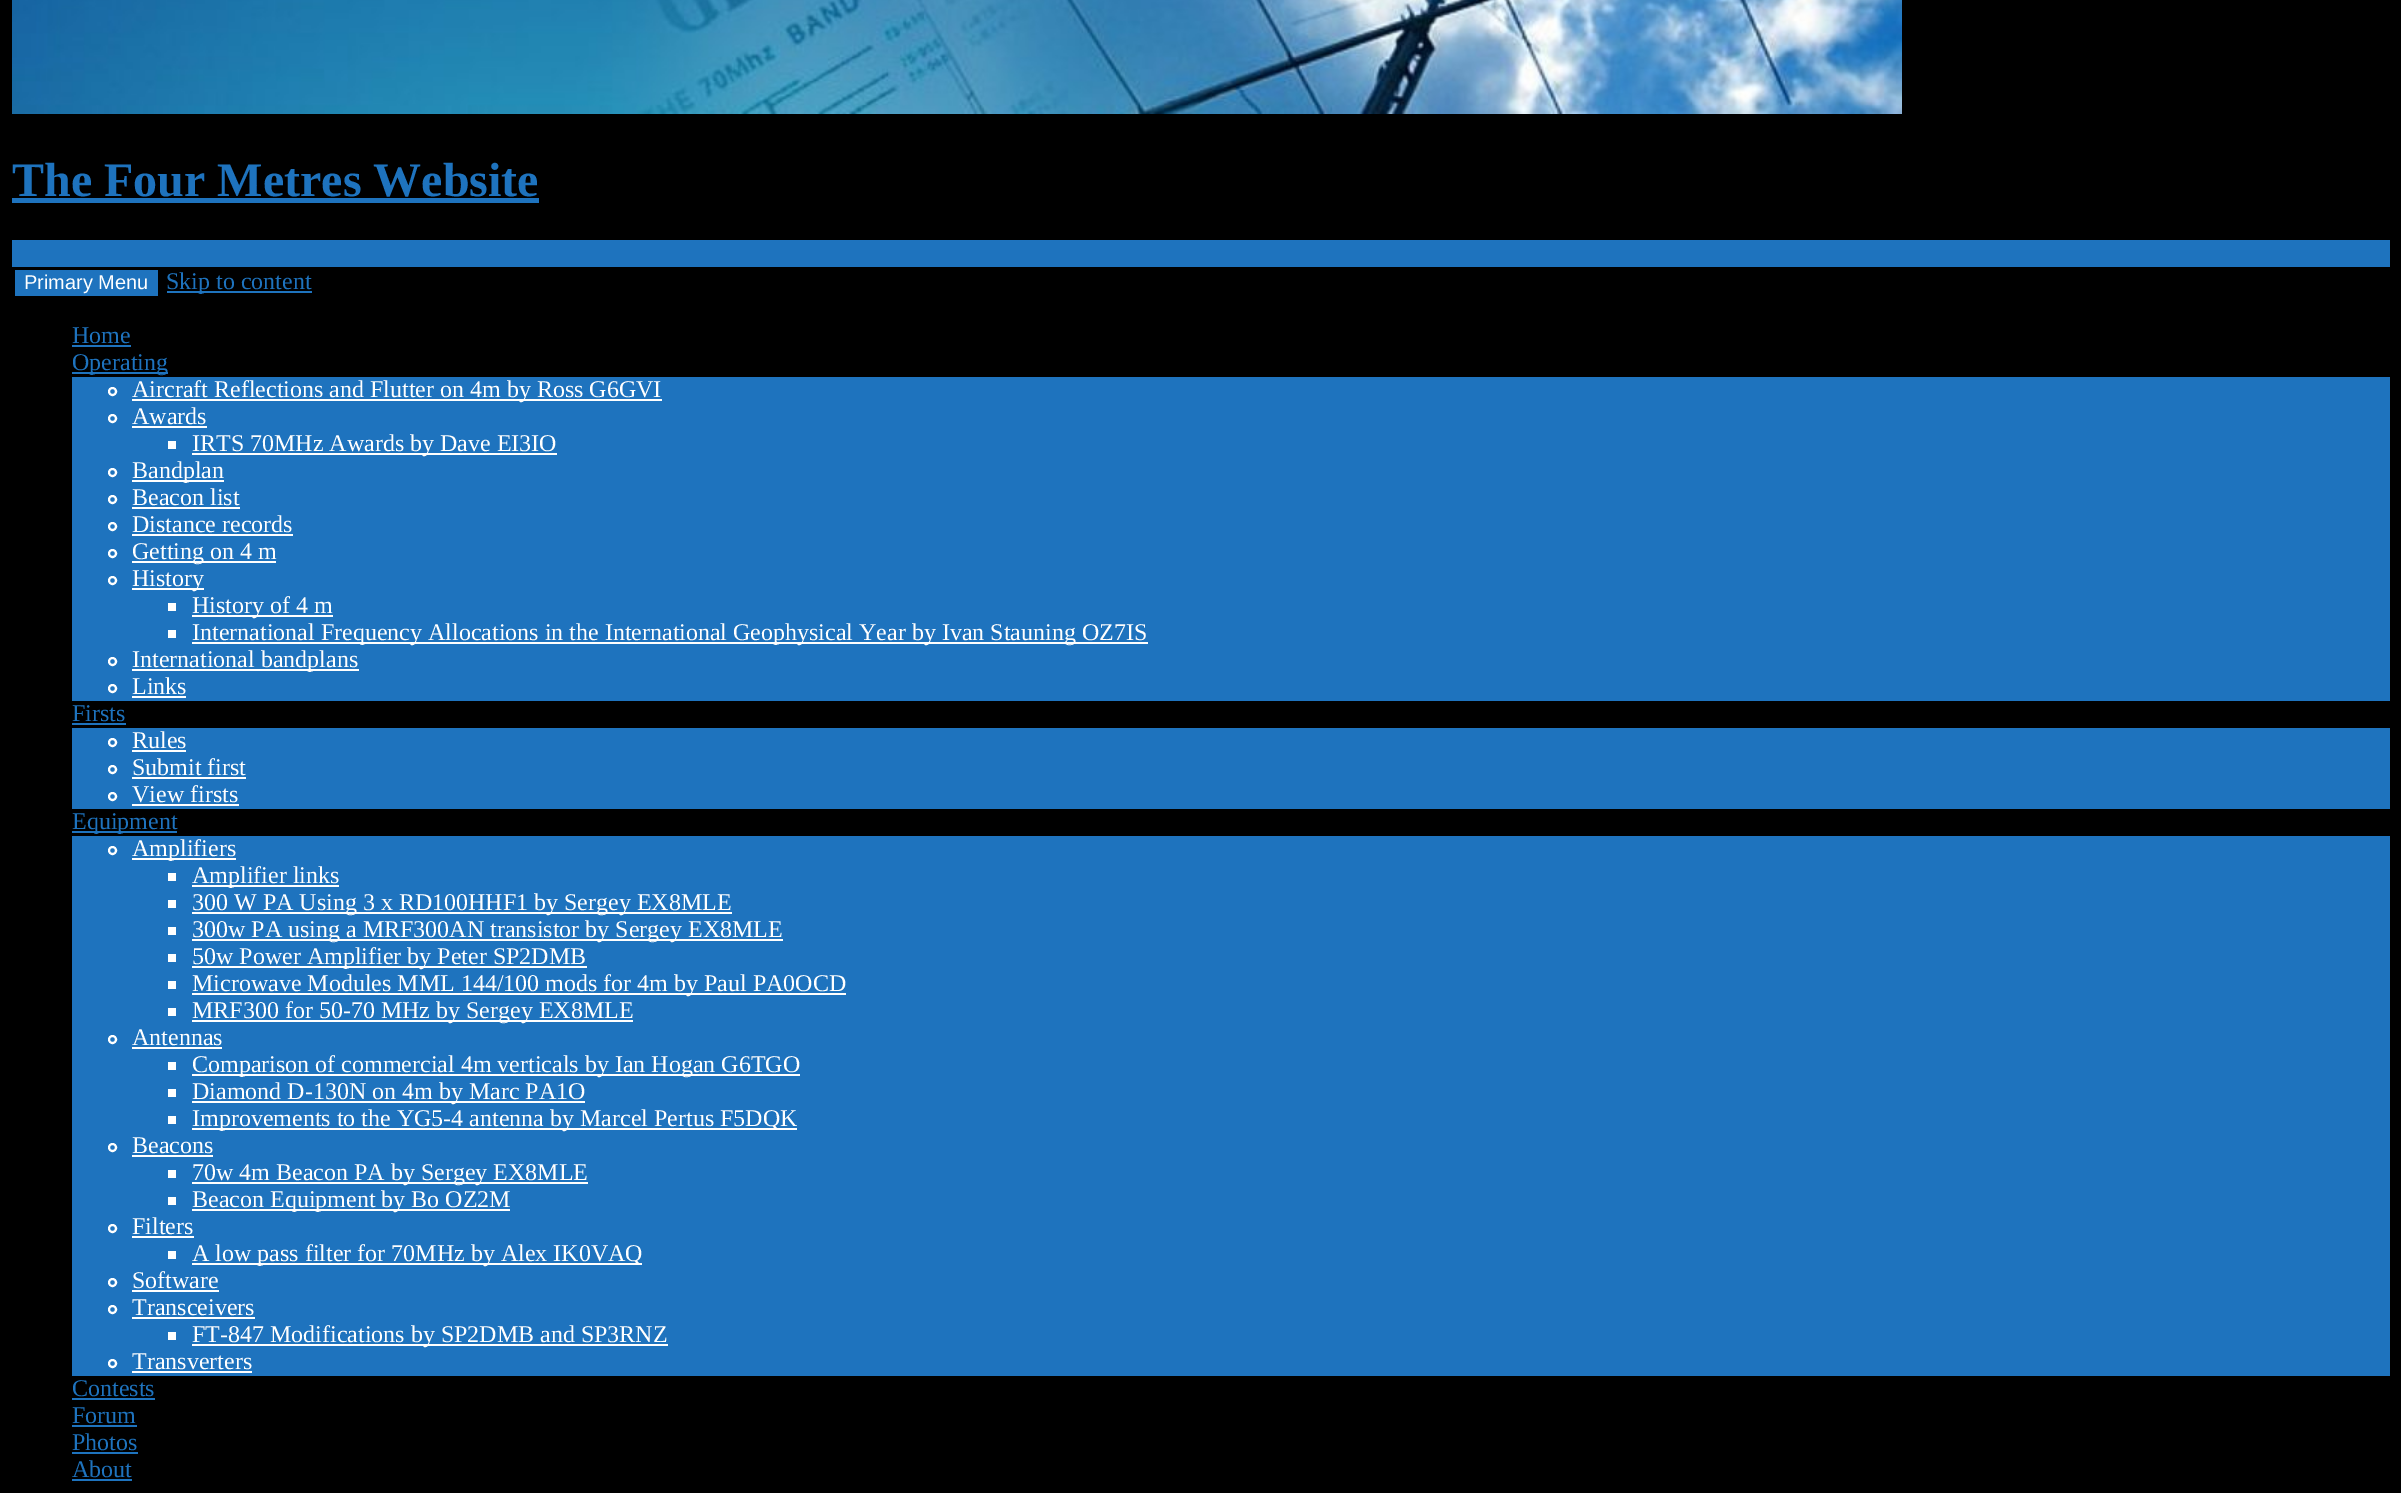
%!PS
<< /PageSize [2401 1493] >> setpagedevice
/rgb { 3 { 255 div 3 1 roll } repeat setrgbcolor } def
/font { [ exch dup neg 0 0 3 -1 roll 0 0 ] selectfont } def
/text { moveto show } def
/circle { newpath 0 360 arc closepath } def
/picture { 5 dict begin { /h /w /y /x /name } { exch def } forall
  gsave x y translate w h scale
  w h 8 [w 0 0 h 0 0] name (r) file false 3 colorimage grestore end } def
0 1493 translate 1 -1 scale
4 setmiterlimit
0 0 0 rgb
0 0 2401 1493 rectfill
(img_01.rgb) 12 0 1890 114 picture
30 115 190 rgb
12 198 527 5 rectfill
12 240 2378 27 rectfill
15 270 143 26 rectfill
167 291 145 2 rectfill
72 345 59 2 rectfill
72 372 96 2 rectfill
72 377 2318 324 rectfill
255 255 255 rgb
2 setlinewidth
112.5 391.5 3.5 circle stroke
132 399 530 2 rectfill
112.5 418.5 3.5 circle stroke
132 426 75 2 rectfill
168 441 8 8 rectfill
192 453 365 2 rectfill
112.5 472.5 3.5 circle stroke
132 480 92 2 rectfill
112.5 499.5 3.5 circle stroke
132 507 108 2 rectfill
112.5 526.5 3.5 circle stroke
132 534 161 2 rectfill
112.5 553.5 3.5 circle stroke
132 561 144 2 rectfill
112.5 580.5 3.5 circle stroke
132 588 72 2 rectfill
168 603 8 8 rectfill
192 615 141 2 rectfill
168 630 8 8 rectfill
192 642 956 2 rectfill
112.5 661.5 3.5 circle stroke
132 669 227 2 rectfill
112.5 688.5 3.5 circle stroke
132 696 54 2 rectfill
30 115 190 rgb
72 723 54 2 rectfill
72 728 2318 81 rectfill
255 255 255 rgb
112.5 742.5 3.5 circle stroke
132 750 54 2 rectfill
112.5 769.5 3.5 circle stroke
132 777 114 2 rectfill
112.5 796.5 3.5 circle stroke
132 804 107 2 rectfill
30 115 190 rgb
72 831 105 2 rectfill
72 836 2318 540 rectfill
255 255 255 rgb
112.5 850.5 3.5 circle stroke
132 858 104 2 rectfill
168 873 8 8 rectfill
192 885 147 2 rectfill
168 900 8 8 rectfill
192 912 540 2 rectfill
168 927 8 8 rectfill
192 939 591 2 rectfill
168 954 8 8 rectfill
192 966 395 2 rectfill
168 981 8 8 rectfill
192 993 654 2 rectfill
168 1008 8 8 rectfill
192 1020 441 2 rectfill
112.5 1039.5 3.5 circle stroke
132 1047 90 2 rectfill
168 1062 8 8 rectfill
192 1074 608 2 rectfill
168 1089 8 8 rectfill
192 1101 393 2 rectfill
168 1116 8 8 rectfill
192 1128 605 2 rectfill
112.5 1147.5 3.5 circle stroke
132 1155 81 2 rectfill
168 1170 8 8 rectfill
192 1182 396 2 rectfill
168 1197 8 8 rectfill
192 1209 318 2 rectfill
112.5 1228.5 3.5 circle stroke
132 1236 62 2 rectfill
168 1251 8 8 rectfill
192 1263 450 2 rectfill
112.5 1282.5 3.5 circle stroke
132 1290 87 2 rectfill
112.5 1309.5 3.5 circle stroke
132 1317 123 2 rectfill
168 1332 8 8 rectfill
192 1344 476 2 rectfill
112.5 1363.5 3.5 circle stroke
132 1371 120 2 rectfill
30 115 190 rgb
72 1398 83 2 rectfill
72 1425 65 2 rectfill
72 1452 66 2 rectfill
72 1479 60 2 rectfill
/LiberationSerif-Bold 48 font
(The Four Metres Website) 12 196 text
/LiberationSans-Regular 20 font
255 255 255 rgb
(Primary Menu) 24 289 text
/LiberationSerif-Regular 24 font
30 115 190 rgb
(Skip to content) 166 289 text
(Home) 72 343 text
(Operating) 72 370 text
255 255 255 rgb
(Aircraft Reflections and Flutter on 4m by Ross G6GVI) 132 397 text
(Awards) 132 424 text
(IRTS 70MHz Awards by Dave EI3IO) 192 451 text
(Bandplan) 132 478 text
(Beacon list) 132 505 text
(Distance records) 132 532 text
(Getting on 4 m) 132 559 text
(History) 132 586 text
(History of 4 m) 192 613 text
(International Frequency Allocations in the International Geophysical Year by Ivan Stauning OZ7IS) 192 640 text
(International bandplans) 132 667 text
(Links) 132 694 text
30 115 190 rgb
(Firsts) 72 721 text
255 255 255 rgb
(Rules) 132 748 text
(Submit first) 132 775 text
(View firsts) 132 802 text
30 115 190 rgb
(Equipment) 72 829 text
255 255 255 rgb
(Amplifiers) 132 856 text
(Amplifier links) 192 883 text
(300 W PA Using 3 x RD100HHF1 by Sergey EX8MLE) 192 910 text
(300w PA using a MRF300AN transistor by Sergey EX8MLE) 192 937 text
(50w Power Amplifier by Peter SP2DMB) 192 964 text
(Microwave Modules MML 144/100 mods for 4m by Paul PA0OCD) 192 991 text
(MRF300 for 50-70 MHz by Sergey EX8MLE) 192 1018 text
(Antennas) 132 1045 text
(Comparison of commercial 4m verticals by Ian Hogan G6TGO) 192 1072 text
(Diamond D-130N on 4m by Marc PA1O) 192 1099 text
(Improvements to the YG5-4 antenna by Marcel Pertus F5DQK) 192 1126 text
(Beacons) 132 1153 text
(70w 4m Beacon PA by Sergey EX8MLE) 192 1180 text
(Beacon Equipment by Bo OZ2M) 192 1207 text
(Filters) 132 1234 text
(A low pass filter for 70MHz by Alex IK0VAQ) 192 1261 text
(Software) 132 1288 text
(Transceivers) 132 1315 text
(FT-847 Modifications by SP2DMB and SP3RNZ) 192 1342 text
(Transverters) 132 1369 text
30 115 190 rgb
(Contests) 72 1396 text
(Forum) 72 1423 text
(Photos) 72 1450 text
(About) 72 1477 text
showpage
